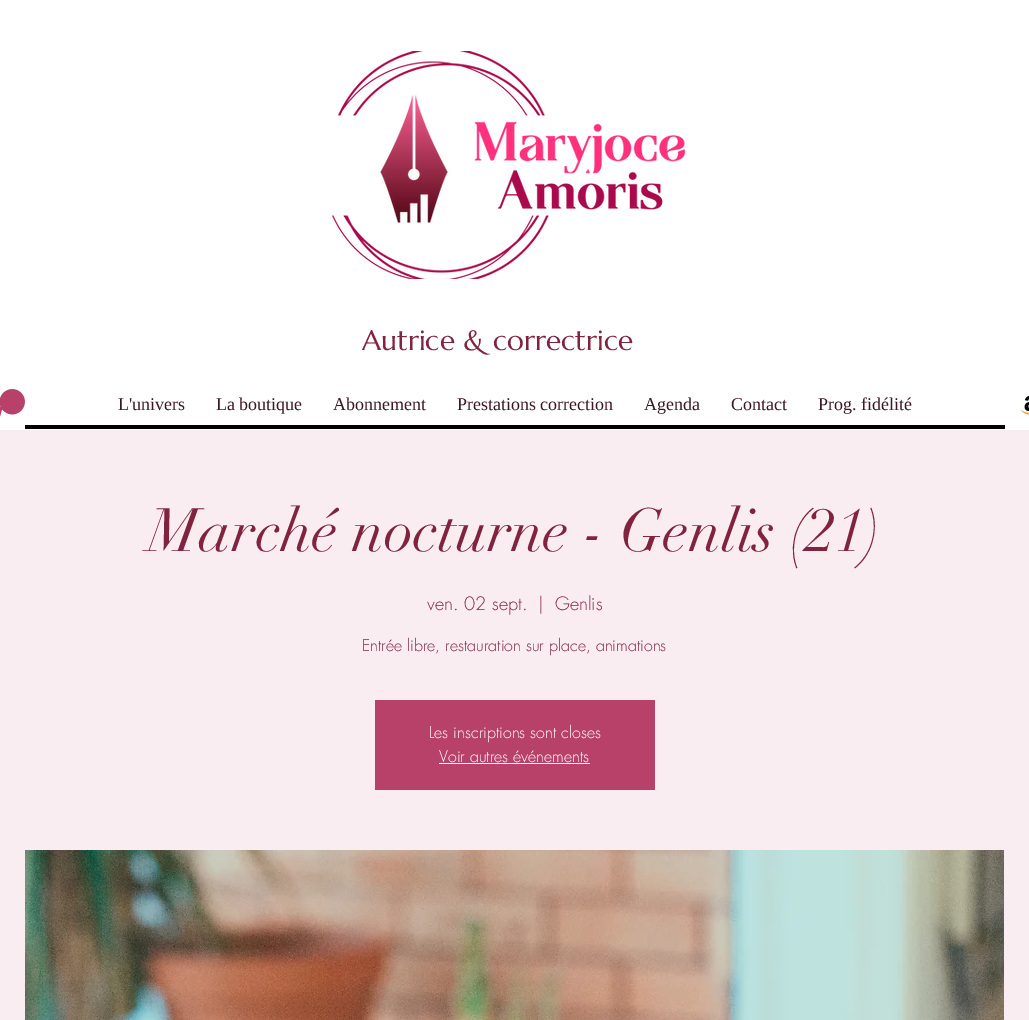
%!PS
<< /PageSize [1029 1020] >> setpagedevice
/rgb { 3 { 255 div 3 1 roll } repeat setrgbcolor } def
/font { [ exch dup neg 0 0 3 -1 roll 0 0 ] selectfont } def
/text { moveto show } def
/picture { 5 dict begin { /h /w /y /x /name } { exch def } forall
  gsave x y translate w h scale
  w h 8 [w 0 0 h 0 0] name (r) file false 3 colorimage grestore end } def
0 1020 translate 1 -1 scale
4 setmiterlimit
255 255 255 rgb
0 0 1029 1020 rectfill
(img_01.rgb) 331 51 356 228 picture
(img_02.rgb) 0 389 25 28 picture
0 0 0 rgb
25 425 980 4 rectfill
(img_03.rgb) 1020 395 9 20 picture
249 237 241 rgb
0 430 1029 590 rectfill
184 65 106 rgb
375 700 280 90 rectfill
255 255 255 rgb
439 763 151 1 rectfill
(img_04.rgb) 25 850 979 170 picture
/Marcellus-Regular 28 font
129 35 62 rgb
(Autrice & correctrice) 362 350 text
/LiberationSerif-Regular 18 font
61 22 35 rgb
(L'univers) 118 410 text
(La boutique) 216 410 text
(Abonnement) 333 410 text
(Prestations correction) 457 410 text
(Agenda) 644 410 text
(Contact) 731 410 text
(Prog. fidélité) 818 410 text
/didot-Regular 60 font
129 35 62 rgb
(Marché nocturne - Genlis \(21\)) 148 551 text
/futura-Light 18 font
(ven. 02 sept.) 427 610 text
(|) 538 610 text
(Genlis) 555 610 text
/futura-Light 16 font
(Entrée libre, restauration sur place, animations) 362 651 text
255 255 255 rgb
(Les inscriptions sont closes) 429 738 text
(Voir autres événements) 439 762 text
showpage
